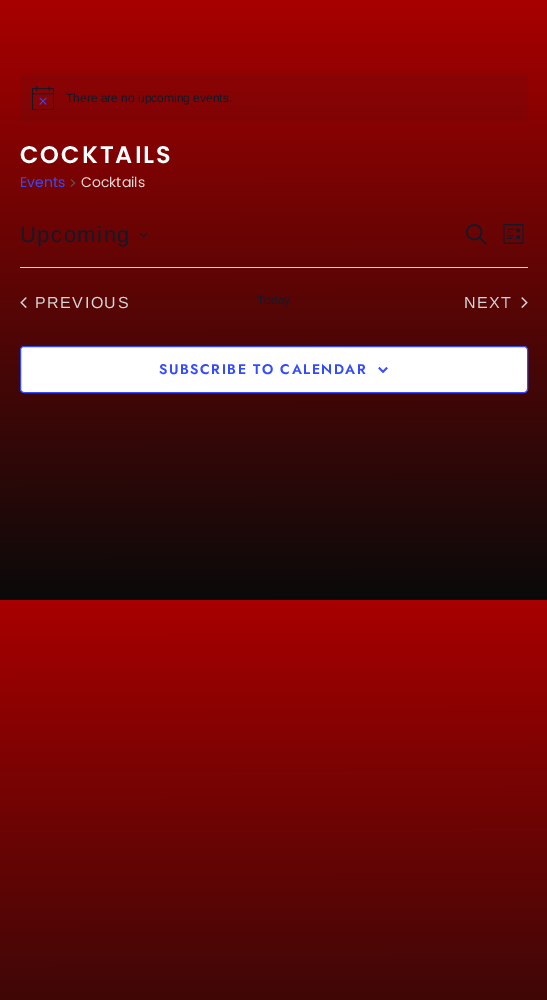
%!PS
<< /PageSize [547 1000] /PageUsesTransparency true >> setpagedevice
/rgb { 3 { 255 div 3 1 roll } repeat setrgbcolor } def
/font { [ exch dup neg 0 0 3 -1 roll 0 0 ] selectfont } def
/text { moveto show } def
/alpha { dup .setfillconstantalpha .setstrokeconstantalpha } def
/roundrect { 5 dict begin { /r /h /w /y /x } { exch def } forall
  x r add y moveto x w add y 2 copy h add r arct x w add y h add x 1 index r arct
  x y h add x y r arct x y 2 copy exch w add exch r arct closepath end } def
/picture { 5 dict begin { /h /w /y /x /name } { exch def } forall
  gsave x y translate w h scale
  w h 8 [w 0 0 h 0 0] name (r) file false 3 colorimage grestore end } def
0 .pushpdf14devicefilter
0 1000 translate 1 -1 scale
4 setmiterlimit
255 255 255 rgb
0 0 547 1000 rectfill
gsave 0 0 moveto 547 0 rlineto 0 600 rlineto -547 0 rlineto closepath clip newpath
<< /ShadingType 2 /ColorSpace /DeviceRGB /Coords [273 0 274 600] /Extend [true true] /Function << /FunctionType 2 /Domain [0 1] /C0 [0.659 0 0] /C1 [0.039 0.039 0.039] /N 1 >> >> shfill grestore
gsave 0 600 moveto 547 0 rlineto 0 400 rlineto -547 0 rlineto closepath clip newpath
<< /ShadingType 2 /ColorSpace /DeviceRGB /Coords [273 600 274 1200] /Extend [true true] /Function << /FunctionType 2 /Domain [0 1] /C0 [0.659 0 0] /C1 [0.039 0.039 0.039] /N 1 >> >> shfill grestore
0.07 alpha
20 24 39 rgb
20 74 508 48 4 roundrect fill
1 alpha
(img_01.rgb) 32 86 22 24 picture
(img_02.rgb) 70 179 6 8 picture
(img_03.rgb) 139 232 9 6 picture
(img_04.rgb) 466 224 21 21 picture
(img_05.rgb) 503 224 21 20 picture
213 213 213 rgb
20 267 508 1 rectfill
(img_06.rgb) 20 297 7 11 picture
(img_07.rgb) 521 297 7 11 picture
255 255 255 rgb
20.5 346.5 507 46 3.5 roundrect gsave fill grestore
51 74 255 rgb
stroke
(img_08.rgb) 378 367 10 6 picture
/LiberationSans-Regular 12 font
20 24 39 rgb
(There are no upcoming events.) 66 102 text
/Poppins-SemiBold 24 font
255 255 255 rgb
20 163 moveto 2 0 (COCKTAILS) ashow
/Poppins-Regular 14 font
51 74 255 rgb
(Events) 20 187 text
233 216 216 rgb
(Cocktails) 81 187 text
/LiberationSans-Regular 22 font
20 24 39 rgb
20 242 moveto 1.5 0 (Upcoming) ashow
/LiberationSans-Regular 16 font
213 213 213 rgb
35 308 moveto 1.5 0 (PREVIOUS) ashow
/LiberationSans-Regular 12 font
20 24 39 rgb
(Today) 257 304 text
/LiberationSans-Regular 16 font
213 213 213 rgb
464 308 moveto 1.5 0 (NEXT) ashow
/Jost-SemiBold 14 font
51 74 255 rgb
159 374 moveto 1.5 0 (SUBSCRIBE TO CALENDAR) ashow
.poppdf14devicefilter showpage
